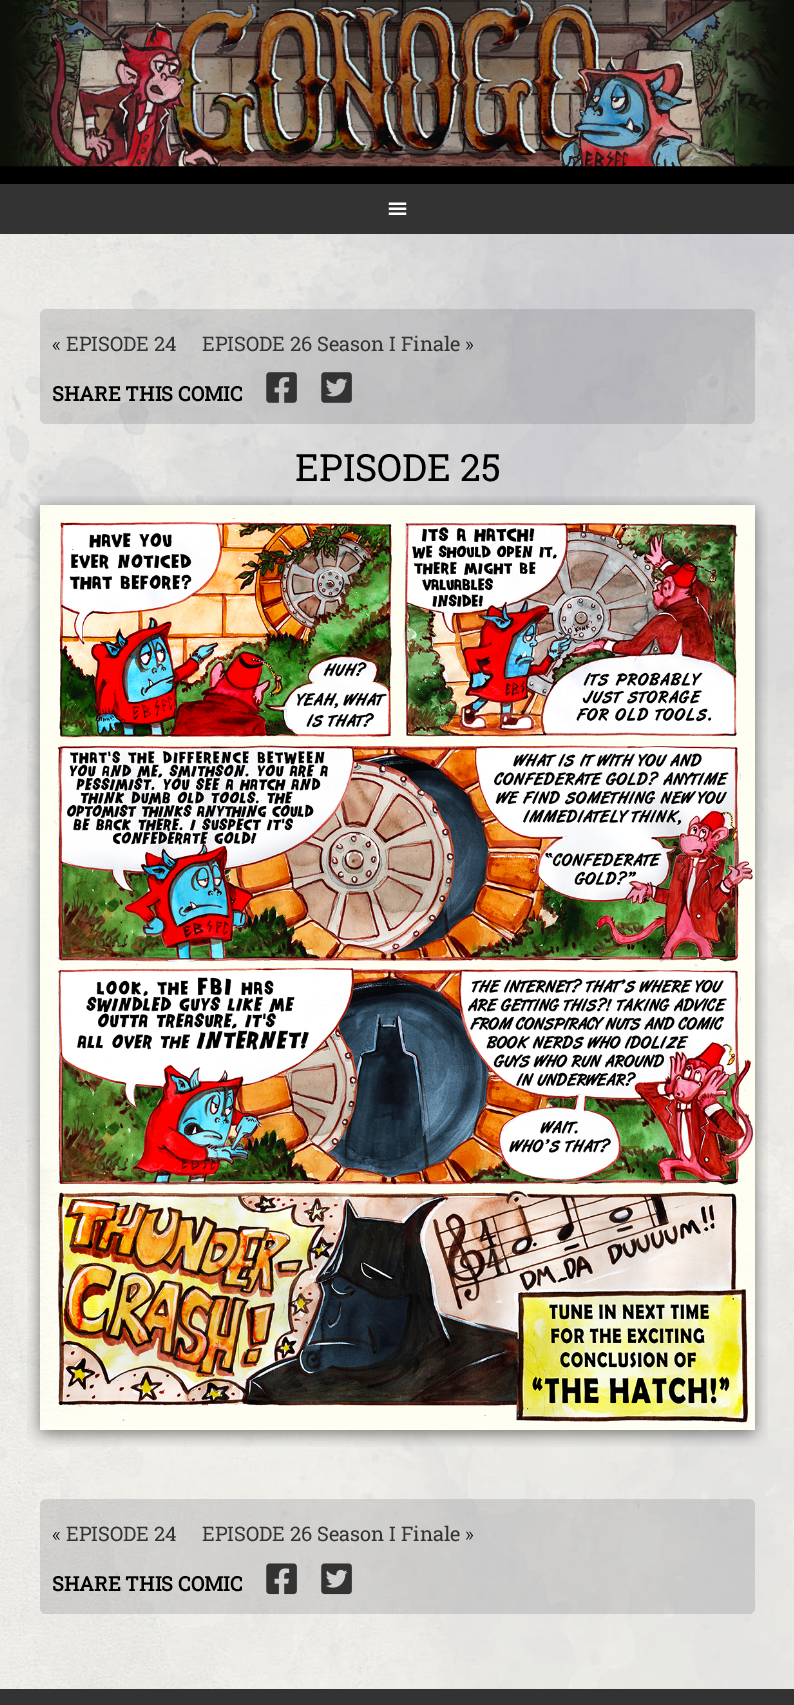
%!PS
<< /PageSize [794 1705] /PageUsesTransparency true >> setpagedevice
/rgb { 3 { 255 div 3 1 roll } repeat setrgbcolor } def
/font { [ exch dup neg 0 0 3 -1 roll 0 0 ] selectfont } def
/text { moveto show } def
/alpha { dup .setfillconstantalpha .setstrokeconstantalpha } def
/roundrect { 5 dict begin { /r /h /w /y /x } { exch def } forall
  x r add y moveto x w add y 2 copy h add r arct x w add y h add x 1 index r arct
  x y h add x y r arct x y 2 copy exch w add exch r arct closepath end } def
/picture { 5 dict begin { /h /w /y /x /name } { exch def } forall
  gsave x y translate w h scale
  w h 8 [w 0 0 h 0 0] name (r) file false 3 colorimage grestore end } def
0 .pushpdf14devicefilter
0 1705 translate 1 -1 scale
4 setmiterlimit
255 255 255 rgb
0 0 794 1705 rectfill
(img_01.rgb) 0 234 794 1455 picture
0 0 0 rgb
0 166 794 18 rectfill
(img_02.rgb) 0 0 794 167 picture
51 51 51 rgb
0 184 794 50 rectfill
(img_03.rgb) 388 202 19 13 picture
0.2 alpha
97 97 105 rgb
40 309 715 115 6 roundrect fill
1 alpha
(img_04.rgb) 266 372 31 31 picture
(img_05.rgb) 321 372 31 31 picture
(img_06.rgb) 27 496 741 951 picture
0.2 alpha
40 1499 715 115 6 roundrect fill
1 alpha
(img_07.rgb) 266 1563 31 32 picture
(img_08.rgb) 321 1563 31 32 picture
51 51 51 rgb
0 1689 794 16 rectfill
/RobotoSlab-Light 20 font
0 0 0 rgb
(«) 52 351 text
/RobotoSlab-Regular 20 font
51 51 51 rgb
(EPISODE 24) 66 351 text
(EPISODE 26 Season I Finale) 202 351 text
/RobotoSlab-Light 20 font
0 0 0 rgb
(») 465 351 text
/RobotoSlab-Bold 20 font
(SHARE THIS COMIC) 52 401 text
/RobotoSlab-Regular 37.5 font
(EPISODE 25) 295 481 text
/RobotoSlab-Light 20 font
(«) 52 1541 text
/RobotoSlab-Regular 20 font
51 51 51 rgb
(EPISODE 24) 66 1541 text
(EPISODE 26 Season I Finale) 202 1541 text
/RobotoSlab-Light 20 font
0 0 0 rgb
(») 465 1541 text
/RobotoSlab-Bold 20 font
(SHARE THIS COMIC) 52 1591 text
.poppdf14devicefilter showpage
